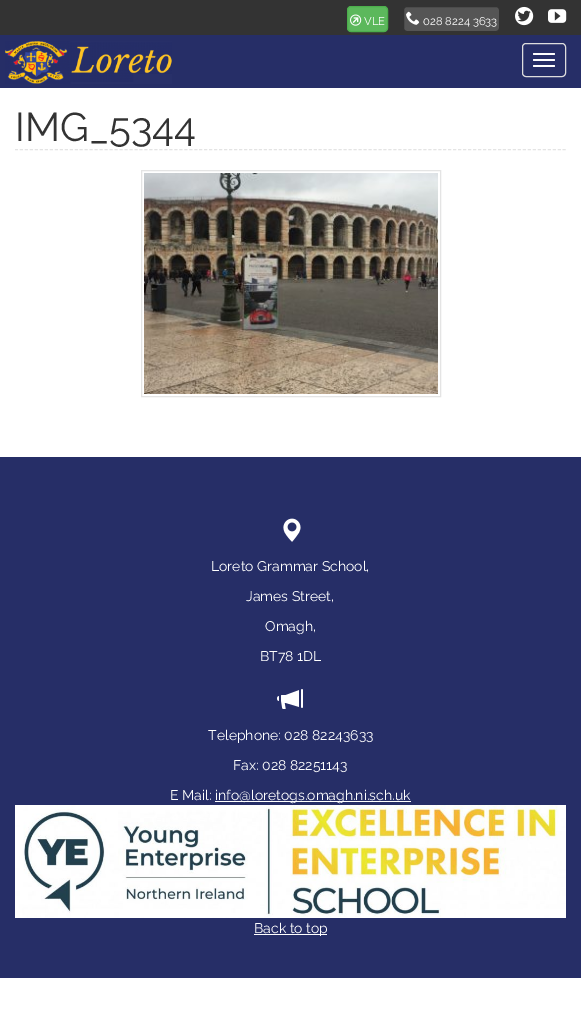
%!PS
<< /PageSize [581 1020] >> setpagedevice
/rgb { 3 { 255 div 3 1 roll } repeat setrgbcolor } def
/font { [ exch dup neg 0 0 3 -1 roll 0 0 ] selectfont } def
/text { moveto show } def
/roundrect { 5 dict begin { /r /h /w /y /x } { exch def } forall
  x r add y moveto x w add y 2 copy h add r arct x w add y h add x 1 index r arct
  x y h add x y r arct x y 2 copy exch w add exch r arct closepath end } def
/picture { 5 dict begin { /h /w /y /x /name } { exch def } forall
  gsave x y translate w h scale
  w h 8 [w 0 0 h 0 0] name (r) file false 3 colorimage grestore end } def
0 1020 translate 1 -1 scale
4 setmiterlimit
255 255 255 rgb
0 0 581 1020 rectfill
51 51 51 rgb
0 0 581 35 rectfill
92 184 92 rgb
347.5 6.5 40 25 3.5 roundrect gsave fill grestore
76 174 76 rgb
stroke
(img_01.rgb) 350 14 12 12 picture
85 85 85 rgb
403.5 6.5 96 25 3.5 roundrect gsave fill grestore
51 51 51 rgb
stroke
(img_02.rgb) 406 11 14 14 picture
(img_03.rgb) 515 6 19 20 picture
(img_04.rgb) 548 9 19 14 picture
38 46 103 rgb
0 35 581 53 rectfill
(img_05.rgb) 5 41 167 43 picture
221 221 221 rgb
522.5 43.5 43 33 3.5 roundrect stroke
255 255 255 rgb
533 53 22 2 1 roundrect fill
533 59 22 2 1 roundrect fill
533 65 22 2 1 roundrect fill
228 228 228 rgb
[3 1.98] 0 setdash
15 149.5 moveto 551 0 rlineto stroke
[] 0 setdash
141.5 170.5 299 226 rectstroke
(img_06.rgb) 144 173 294 221 picture
38 46 103 rgb
0 457 581 521 rectfill
(img_07.rgb) 283 518 18 24 picture
(img_08.rgb) 277 689 26 20 picture
255 255 255 rgb
215 801 196 1 rectfill
(img_09.rgb) 15 805 551 113 picture
254 934 73 1 rectfill
/Raleway-Thin 11.25 font
(VLE) 364 25 text
(028 8224 3633) 423 25 text
/Raleway-Thin 40 font
51 51 51 rgb
(IMG_5344) 15 141 text
/Raleway-Thin 14 font
255 255 255 rgb
(Loreto Grammar School,) 211 571 text
(James Street,) 246 601 text
(Omagh,) 265 631 text
(BT78 1DL) 260 661 text
(Telephone: 028 82243633) 208 740 text
(Fax: 028 82251143) 233 770 text
(E Mail:) 170 800 text
(info@loretogs.omagh.ni.sch.uk) 215 800 text
(Back to top) 254 933 text
showpage
